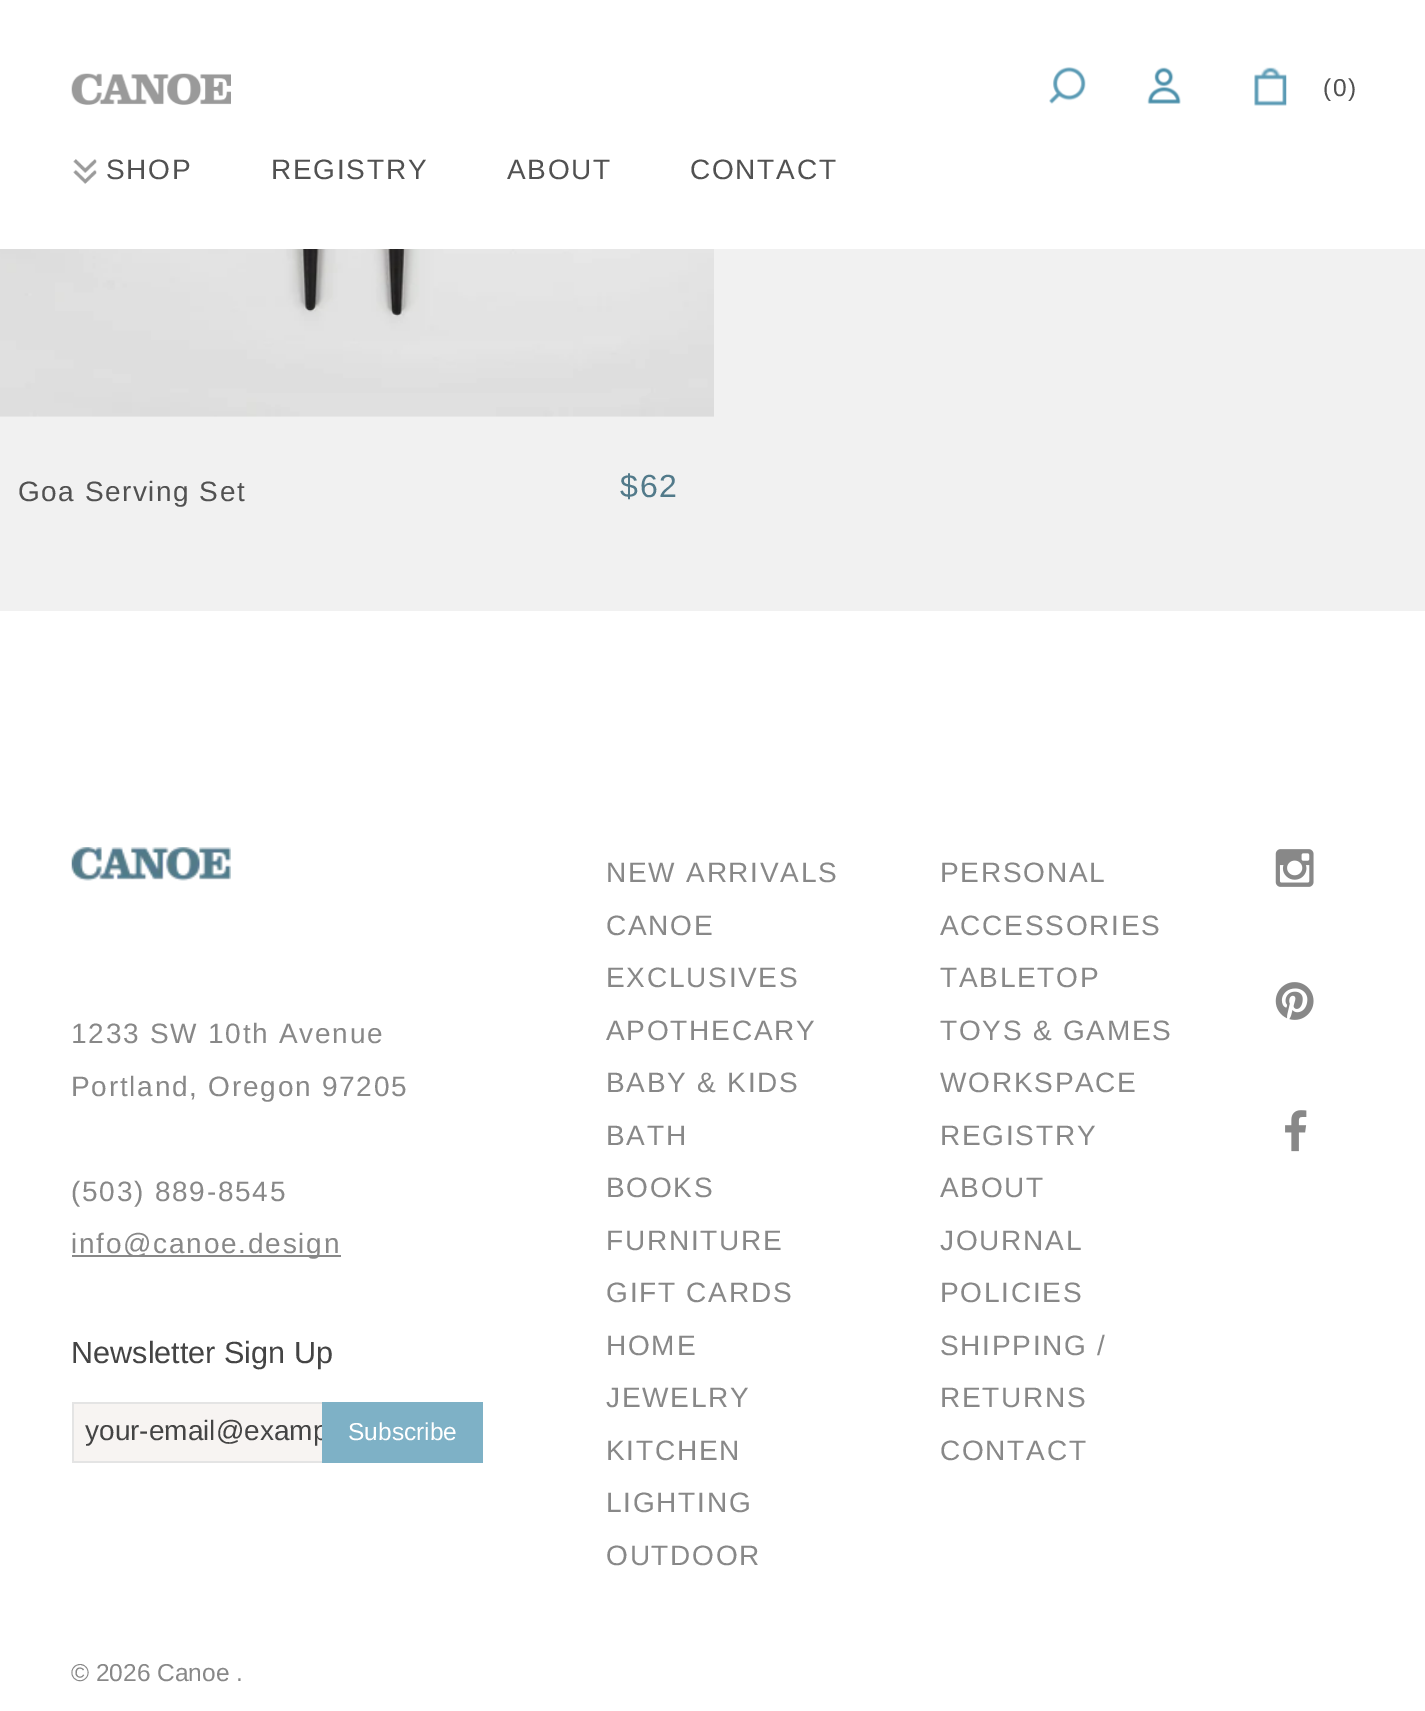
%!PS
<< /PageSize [1425 1711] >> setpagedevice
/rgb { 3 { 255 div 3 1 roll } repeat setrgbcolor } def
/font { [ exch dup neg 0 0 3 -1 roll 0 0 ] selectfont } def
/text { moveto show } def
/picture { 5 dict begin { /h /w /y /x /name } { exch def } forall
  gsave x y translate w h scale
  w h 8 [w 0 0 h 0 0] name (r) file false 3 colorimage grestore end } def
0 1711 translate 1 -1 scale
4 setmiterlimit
255 255 255 rgb
0 0 1425 1711 rectfill
(img_01.rgb) 71 73 160 32 picture
(img_02.rgb) 1049 67 37 37 picture
(img_03.rgb) 1147 67 34 37 picture
(img_04.rgb) 1254 67 33 39 picture
(img_05.rgb) 73 159 24 25 picture
241 241 241 rgb
0 249 1425 362 rectfill
(img_06.rgb) 0 249 714 168 picture
(img_07.rgb) 71 847 160 34 picture
136 136 136 rgb
72 1255 269 2 rectfill
247 244 242 rgb
74 1404 248 57 rectfill
228 228 228 rgb
72 1402 250 2 rectfill
72 1461 250 2 rectfill
72 1402 2 61 rectfill
(img_08.rgb) 1275 849 39 38 picture
(img_09.rgb) 1275 982 39 38 picture
(img_10.rgb) 1285 1110 22 42 picture
/LiberationSans-Regular 24.5 font
81 81 81 rgb
1323 96 moveto 1.5 0 (\(0\)) ashow
/LiberationSans-Regular 28 font
106 179 moveto 1.75 0 (SHOP) ashow
271 179 moveto 1.75 0 (REGISTRY) ashow
507 179 moveto 1.75 0 (ABOUT) ashow
690 179 moveto 1.75 0 (CONTACT) ashow
18 501 moveto 1.5 0 (Goa Serving Set) ashow
/LiberationSans-Regular 32 font
82 122 138 rgb
620 497 moveto 1.75 0 ($62) ashow
/LiberationSans-Regular 28 font
136 136 136 rgb
71 1043 moveto 1.75 0 (1233 SW 10th Avenue) ashow
71 1096 moveto 1.75 0 (Portland, Oregon 97205) ashow
71 1201 moveto 1.75 0 (\(503\) 889-8545) ashow
71 1253 moveto 1.75 0 (info@canoe.design) ashow
/LiberationSans-Regular 30.6 font
68 68 68 rgb
(Newsletter Sign Up) 71 1363 text
/LiberationSans-Regular 28 font
(your-email@examp) 85 1440 text
126 177 198 rgb
322 1402 161 61 rectfill
/LiberationSans-Regular 24.5 font
255 255 255 rgb
(Subscribe) 348 1440 text
/LiberationSans-Regular 28 font
136 136 136 rgb
606 882 moveto 1.75 0 (NEW ARRIVALS) ashow
606 935 moveto 1.75 0 (CANOE) ashow
606 987 moveto 1.75 0 (EXCLUSIVES) ashow
606 1040 moveto 1.75 0 (APOTHECARY) ashow
606 1092 moveto 1.75 0 (BABY & KIDS) ashow
606 1145 moveto 1.75 0 (BATH) ashow
606 1197 moveto 1.75 0 (BOOKS) ashow
606 1250 moveto 1.75 0 (FURNITURE) ashow
606 1302 moveto 1.75 0 (GIFT CARDS) ashow
606 1355 moveto 1.75 0 (HOME) ashow
606 1407 moveto 1.75 0 (JEWELRY) ashow
606 1460 moveto 1.75 0 (KITCHEN) ashow
606 1512 moveto 1.75 0 (LIGHTING) ashow
606 1565 moveto 1.75 0 (OUTDOOR) ashow
940 882 moveto 1.75 0 (PERSONAL) ashow
940 935 moveto 1.75 0 (ACCESSORIES) ashow
940 987 moveto 1.75 0 (TABLETOP) ashow
940 1040 moveto 1.75 0 (TOYS & GAMES) ashow
940 1092 moveto 1.75 0 (WORKSPACE) ashow
940 1145 moveto 1.75 0 (REGISTRY) ashow
940 1197 moveto 1.75 0 (ABOUT) ashow
940 1250 moveto 1.75 0 (JOURNAL) ashow
940 1302 moveto 1.75 0 (POLICIES) ashow
940 1355 moveto 1.75 0 (SHIPPING /) ashow
940 1407 moveto 1.75 0 (RETURNS) ashow
940 1460 moveto 1.75 0 (CONTACT) ashow
/LiberationSans-Regular 24.5 font
(© 2026 Canoe .) 71 1681 text
showpage
